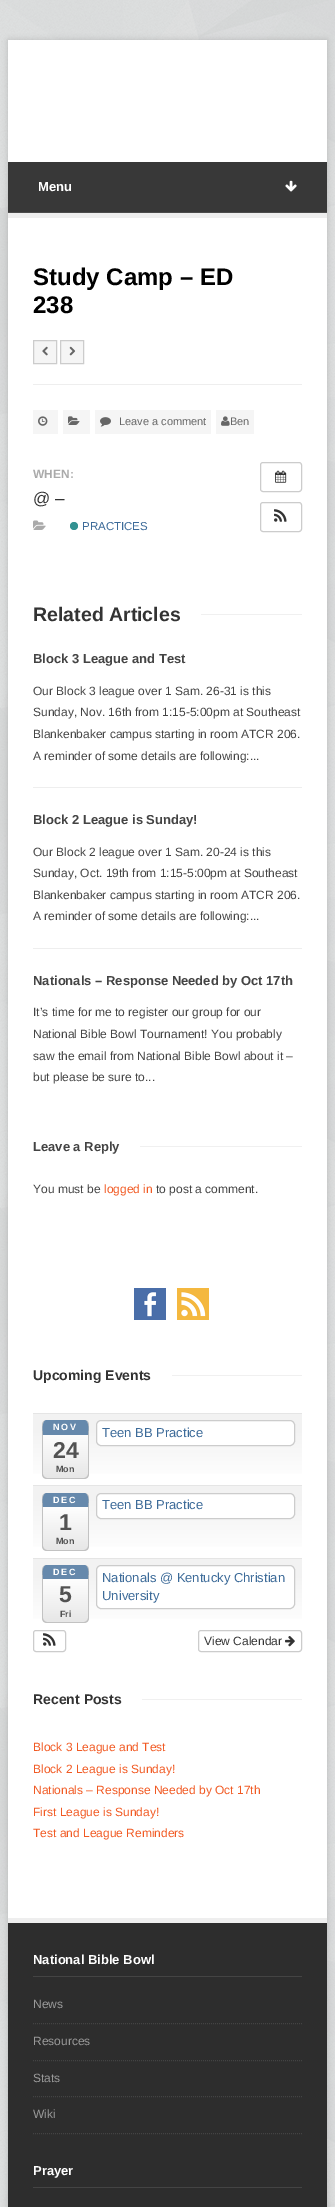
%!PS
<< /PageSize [335 2207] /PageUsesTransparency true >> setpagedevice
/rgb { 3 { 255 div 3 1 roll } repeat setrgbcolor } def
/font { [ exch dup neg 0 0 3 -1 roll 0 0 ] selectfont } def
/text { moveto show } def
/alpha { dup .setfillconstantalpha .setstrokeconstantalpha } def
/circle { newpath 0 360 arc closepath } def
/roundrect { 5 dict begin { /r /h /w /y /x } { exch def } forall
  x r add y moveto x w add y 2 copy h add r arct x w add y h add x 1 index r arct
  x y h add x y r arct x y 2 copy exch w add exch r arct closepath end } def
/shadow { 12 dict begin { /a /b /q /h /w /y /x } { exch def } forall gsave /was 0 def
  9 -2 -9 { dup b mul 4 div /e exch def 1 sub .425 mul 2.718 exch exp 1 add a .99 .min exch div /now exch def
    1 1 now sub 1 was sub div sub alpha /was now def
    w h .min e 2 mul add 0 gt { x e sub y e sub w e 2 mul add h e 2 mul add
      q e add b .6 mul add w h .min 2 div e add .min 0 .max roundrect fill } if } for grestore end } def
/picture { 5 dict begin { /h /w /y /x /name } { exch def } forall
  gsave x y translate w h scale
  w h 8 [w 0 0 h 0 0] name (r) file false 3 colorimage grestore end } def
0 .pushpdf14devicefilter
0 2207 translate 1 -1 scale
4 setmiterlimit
255 255 255 rgb
0 0 335 2207 rectfill
(img_01.rgb) 0 0 335 2207 picture
0 0 0 rgb
8 40 319 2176 0 3 0.15 shadow
255 255 255 rgb
8 40 319 1878 rectfill
56 56 56 rgb
8 162 319 50 rectfill
238 238 238 rgb
8 213 319 5 rectfill
76 76 76 rgb
8 212 319 1 rectfill
(img_02.rgb) 285 180 12 12 picture
238 238 238 rgb
33 384 269 1 rectfill
245 245 245 rgb
33.5 340.5 moveto 23 0 rlineto 0 23 rlineto -23 0 rlineto closepath gsave fill grestore
204 204 204 rgb
stroke
(img_03.rgb) 42 346 6 10 picture
245 245 245 rgb
60.5 340.5 moveto 23 0 rlineto 0 23 rlineto -23 0 rlineto closepath gsave fill grestore
204 204 204 rgb
stroke
(img_04.rgb) 69 346 7 10 picture
245 245 245 rgb
33 410 25 24 rectfill
(img_05.rgb) 38 416 10 10 picture
63 410 27 24 rectfill
(img_06.rgb) 68 416 12 9 picture
95 410 116 24 rectfill
(img_07.rgb) 100 417 11 10 picture
216 410 38 24 rectfill
(img_08.rgb) 221 416 9 10 picture
(img_09.rgb) 33 520 13 10 picture
51 146 146 rgb
74 526 4 circle fill
204 204 204 rgb
260.5 462.5 41 29 2.5 roundrect stroke
(img_10.rgb) 275 470 12 13 picture
260.5 502.5 41 29 2.5 roundrect stroke
(img_11.rgb) 274 509 13 13 picture
240 240 240 rgb
201 614 101 1 rectfill
238 238 238 rgb
33 787 269 1 rectfill
33 948 269 1 rectfill
240 240 240 rgb
140 1146 162 1 rectfill
(img_12.rgb) 134 1288 32 32 picture
(img_13.rgb) 177 1288 32 32 picture
172 1375 130 1 rectfill
gsave 33 1414 moveto 269 0 rlineto 0 60 rlineto -269 0 rlineto closepath clip newpath
<< /ShadingType 2 /ColorSpace /DeviceRGB /Coords [168 1414 168 1485] /Extend [true true] /Function << /FunctionType 3 /Domain [0 1] /Functions [<< /FunctionType 2 /Domain [0 1] /C0 [0.949 0.949 0.949] /C1 [0.949 0.949 0.949] /N 1 >> << /FunctionType 2 /Domain [0 1] /C0 [0.949 0.949 0.949] /C1 [1 1 1] /N 1 >>] /Bounds [0.18] /Encode [0 1 0 1] >> >> shfill grestore
229 229 229 rgb
33 1413 269 1 rectfill
gsave
42 1420 47 59 5 roundrect clip newpath
gsave 43 1420 moveto 45 0 rlineto 0 58 rlineto -45 0 rlineto closepath clip newpath
<< /ShadingType 2 /ColorSpace /DeviceRGB /Coords [66 1420 66 1478] /Extend [true true] /Function << /FunctionType 3 /Domain [0 1] /Functions [<< /FunctionType 2 /Domain [0 1] /C0 [1 1 1] /C1 [1 1 1] /N 1 >> << /FunctionType 2 /Domain [0 1] /C0 [1 1 1] /C1 [0.906 0.906 0.906] /N 1 >>] /Bounds [0.2] /Encode [0 1 0 1] >> >> shfill grestore
grestore
194 194 194 rgb
47 1420 moveto 37 0 rlineto 3 0 5 2 5 5 rcurveto 0 49 rlineto 0 3 -2 5 -5 5 rcurveto -37 0 rlineto -3 0 -5 -2 -5 -5 rcurveto 0 -49 rlineto 0 -3 2 -5 5 -5 rcurveto closepath 47 1420 moveto 37 0 rlineto 2 0 4 2 4 5 rcurveto 0 49 rlineto 0 2 -2 4 -4 4 rcurveto -37 0 rlineto -2 0 -4 -2 -4 -4 rcurveto 0 -49 rlineto 0 -3 2 -5 4 -5 rcurveto closepath eofill
102 137 172 rgb
47 1420 moveto -6 0 -4 12 -4 15 rcurveto 45 0 rlineto 0 -3 2 -15 -4 -15 rcurveto closepath fill
255 255 255 rgb
96.5 1420.5 198 25 4.5 roundrect gsave fill grestore
204 204 204 rgb
stroke
gsave 33 1486 moveto 269 0 rlineto 0 61 rlineto -269 0 rlineto closepath clip newpath
<< /ShadingType 2 /ColorSpace /DeviceRGB /Coords [168 1486 168 1558] /Extend [true true] /Function << /FunctionType 3 /Domain [0 1] /Functions [<< /FunctionType 2 /Domain [0 1] /C0 [0.949 0.949 0.949] /C1 [0.949 0.949 0.949] /N 1 >> << /FunctionType 2 /Domain [0 1] /C0 [0.949 0.949 0.949] /C1 [1 1 1] /N 1 >>] /Bounds [0.18] /Encode [0 1 0 1] >> >> shfill grestore
229 229 229 rgb
33 1485 269 1 rectfill
gsave
42 1493 47 58 5 roundrect clip newpath
gsave 43 1493 moveto 45 0 rlineto 0 57 rlineto -45 0 rlineto closepath clip newpath
<< /ShadingType 2 /ColorSpace /DeviceRGB /Coords [66 1493 66 1550] /Extend [true true] /Function << /FunctionType 3 /Domain [0 1] /Functions [<< /FunctionType 2 /Domain [0 1] /C0 [1 1 1] /C1 [1 1 1] /N 1 >> << /FunctionType 2 /Domain [0 1] /C0 [1 1 1] /C1 [0.906 0.906 0.906] /N 1 >>] /Bounds [0.21] /Encode [0 1 0 1] >> >> shfill grestore
grestore
194 194 194 rgb
47 1493 moveto 37 0 rlineto 3 0 5 2 5 5 rcurveto 0 48 rlineto 0 3 -2 5 -5 5 rcurveto -37 0 rlineto -3 0 -5 -2 -5 -5 rcurveto 0 -48 rlineto 0 -3 2 -5 5 -5 rcurveto closepath 47 1493 moveto 37 0 rlineto 2 0 4 2 4 5 rcurveto 0 48 rlineto 0 2 -2 4 -4 4 rcurveto -37 0 rlineto -2 0 -4 -2 -4 -4 rcurveto 0 -48 rlineto 0 -3 2 -5 4 -5 rcurveto closepath eofill
102 137 172 rgb
47 1493 moveto -6 0 -4 11 -4 14 rcurveto 45 0 rlineto 0 -3 2 -14 -4 -14 rcurveto closepath fill
255 255 255 rgb
96.5 1493.5 198 25 4.5 roundrect gsave fill grestore
204 204 204 rgb
stroke
gsave 33 1559 moveto 269 0 rlineto 0 60 rlineto -269 0 rlineto closepath clip newpath
<< /ShadingType 2 /ColorSpace /DeviceRGB /Coords [168 1559 168 1630] /Extend [true true] /Function << /FunctionType 3 /Domain [0 1] /Functions [<< /FunctionType 2 /Domain [0 1] /C0 [0.949 0.949 0.949] /C1 [0.949 0.949 0.949] /N 1 >> << /FunctionType 2 /Domain [0 1] /C0 [0.949 0.949 0.949] /C1 [1 1 1] /N 1 >>] /Bounds [0.18] /Encode [0 1 0 1] >> >> shfill grestore
229 229 229 rgb
33 1558 269 1 rectfill
gsave
42 1565 47 58 5 roundrect clip newpath
gsave 43 1565 moveto 45 0 rlineto 0 57 rlineto -45 0 rlineto closepath clip newpath
<< /ShadingType 2 /ColorSpace /DeviceRGB /Coords [66 1565 66 1622] /Extend [true true] /Function << /FunctionType 3 /Domain [0 1] /Functions [<< /FunctionType 2 /Domain [0 1] /C0 [1 1 1] /C1 [1 1 1] /N 1 >> << /FunctionType 2 /Domain [0 1] /C0 [1 1 1] /C1 [0.906 0.906 0.906] /N 1 >>] /Bounds [0.21] /Encode [0 1 0 1] >> >> shfill grestore
grestore
194 194 194 rgb
47 1565 moveto 37 0 rlineto 3 0 5 2 5 5 rcurveto 0 48 rlineto 0 3 -2 5 -5 5 rcurveto -37 0 rlineto -3 0 -5 -2 -5 -5 rcurveto 0 -48 rlineto 0 -3 2 -5 5 -5 rcurveto closepath 47 1565 moveto 37 0 rlineto 2 0 4 2 4 5 rcurveto 0 48 rlineto 0 2 -2 4 -4 4 rcurveto -37 0 rlineto -2 0 -4 -2 -4 -4 rcurveto 0 -48 rlineto 0 -3 2 -5 4 -5 rcurveto closepath eofill
102 137 172 rgb
47 1565 moveto -6 0 -4 11 -4 14 rcurveto 45 0 rlineto 0 -3 2 -14 -4 -14 rcurveto closepath fill
255 255 255 rgb
96.5 1565.5 198 43 4.5 roundrect gsave fill grestore
204 204 204 rgb
stroke
33.5 1630.5 32 21 2.5 roundrect stroke
(img_11.rgb) 43 1633 13 13 picture
198.5 1630.5 103 21 2.5 roundrect stroke
(img_14.rgb) 285 1636 10 11 picture
240 240 240 rgb
142 1699 160 1 rectfill
45 45 45 rgb
8 1923 319 284 rectfill
238 238 238 rgb
8 1918 319 5 rectfill
68 68 68 rgb
33 1976 269 1 rectfill
[1 1] 0 setdash
33 2023.5 moveto 269 0 rlineto stroke
33 2060.5 moveto 269 0 rlineto stroke
33 2096.5 moveto 269 0 rlineto stroke
33 2133.5 moveto 269 0 rlineto stroke
33 2187 269 1 rectfill
/LiberationSans-Bold 13 font
255 255 255 rgb
(Menu) 38 191 text
/LiberationSans-Bold 24 font
0 0 0 rgb
(Study Camp – ED) 33 285 text
(238) 33 313 text
/LiberationSans-Regular 11 font
102 102 102 rgb
(Leave a comment) 119 425 text
(Ben) 230 425 text
/LiberationSans-Bold 12 font
170 170 170 rgb
(WHEN:) 33 478 text
/LiberationSans-Regular 17 font
51 51 51 rgb
(@ –) 33 504 text
/LiberationSans-Regular 11.5 font
61 107 153 rgb
(PRACTICES) 82 530 text
/LiberationSans-Bold 19.5 font
51 51 51 rgb
(Related Articles) 33 621 text
/LiberationSans-Bold 13 font
68 68 68 rgb
(Block 3 League and Test) 33 663 text
/LiberationSans-Regular 12 font
(Our Block 3 league over 1 Sam. 26-31 is this) 33 695 text
(Sunday, Nov. 16th from 1:15-5:00pm at Southeast) 33 716 text
(Blankenbaker campus starting in room ATCR 206.) 33 738 text
(A reminder of some details are following:...) 33 760 text
/LiberationSans-Bold 13 font
(Block 2 League is Sunday!) 33 824 text
/LiberationSans-Regular 12 font
(Our Block 2 league over 1 Sam. 20-24 is this) 33 856 text
(Sunday, Oct. 19th from 1:15-5:00pm at Southeast) 33 877 text
(Blankenbaker campus starting in room ATCR 206.) 33 899 text
(A reminder of some details are following:...) 33 920 text
/LiberationSans-Bold 13 font
(Nationals – Response Needed by Oct 17th) 33 985 text
/LiberationSans-Regular 12 font
(It’s time for me to register our group for our) 33 1016 text
(National Bible Bowl Tournament! You probably) 33 1038 text
(saw the email from National Bible Bowl about it –) 33 1060 text
(but please be sure to...) 33 1081 text
/LiberationSans-Bold 13 font
(Leave a Reply) 33 1151 text
/LiberationSans-Regular 12 font
(You must be) 33 1193 text
241 90 35 rgb
(logged in) 104 1193 text
68 68 68 rgb
(to post a comment.) 156 1193 text
/LiberationSans-Bold 14 font
51 51 51 rgb
(Upcoming Events) 33 1380 text
/LiberationSans-Bold 9 font
255 255 255 rgb
53 1430 moveto 2 0 (NOV) ashow
/LiberationSans-Bold 23 font
82 82 82 rgb
(24) 53 1458 text
/LiberationSans-Bold 9 font
(Mon) 56 1472 text
/LiberationSans-Regular 13 font
61 107 153 rgb
(Teen BB Practice) 102 1437 text
/LiberationSans-Bold 9 font
255 255 255 rgb
53 1503 moveto 2 0 (DEC) ashow
/LiberationSans-Bold 23 font
82 82 82 rgb
(1) 59 1530 text
/LiberationSans-Bold 9 font
(Mon) 56 1544 text
/LiberationSans-Regular 13 font
61 107 153 rgb
(Teen BB Practice) 102 1509 text
/LiberationSans-Bold 9 font
255 255 255 rgb
53 1575 moveto 2 0 (DEC) ashow
/LiberationSans-Bold 23 font
82 82 82 rgb
(5) 59 1602 text
/LiberationSans-Bold 9 font
(Fri) 60 1617 text
/LiberationSans-Regular 13 font
61 107 153 rgb
(Nationals @ Kentucky Christian) 102 1582 text
(University) 102 1600 text
/LiberationSans-Regular 12 font
51 51 51 rgb
(View Calendar) 204 1645 text
/LiberationSans-Bold 14 font
(Recent Posts) 33 1704 text
/LiberationSans-Regular 12 font
241 90 35 rgb
(Block 3 League and Test) 33 1751 text
(Block 2 League is Sunday!) 33 1773 text
(Nationals – Response Needed by Oct 17th) 33 1794 text
(First League is Sunday!) 33 1816 text
(Test and League Reminders) 33 1837 text
/LiberationSans-Bold 13 font
255 255 255 rgb
(National Bible Bowl) 33 1964 text
/LiberationSans-Regular 12 font
153 153 153 rgb
(News) 33 2008 text
(Resources) 33 2045 text
(Stats) 33 2082 text
(Wiki) 33 2118 text
/LiberationSans-Bold 13 font
255 255 255 rgb
(Prayer) 33 2175 text
.poppdf14devicefilter showpage
